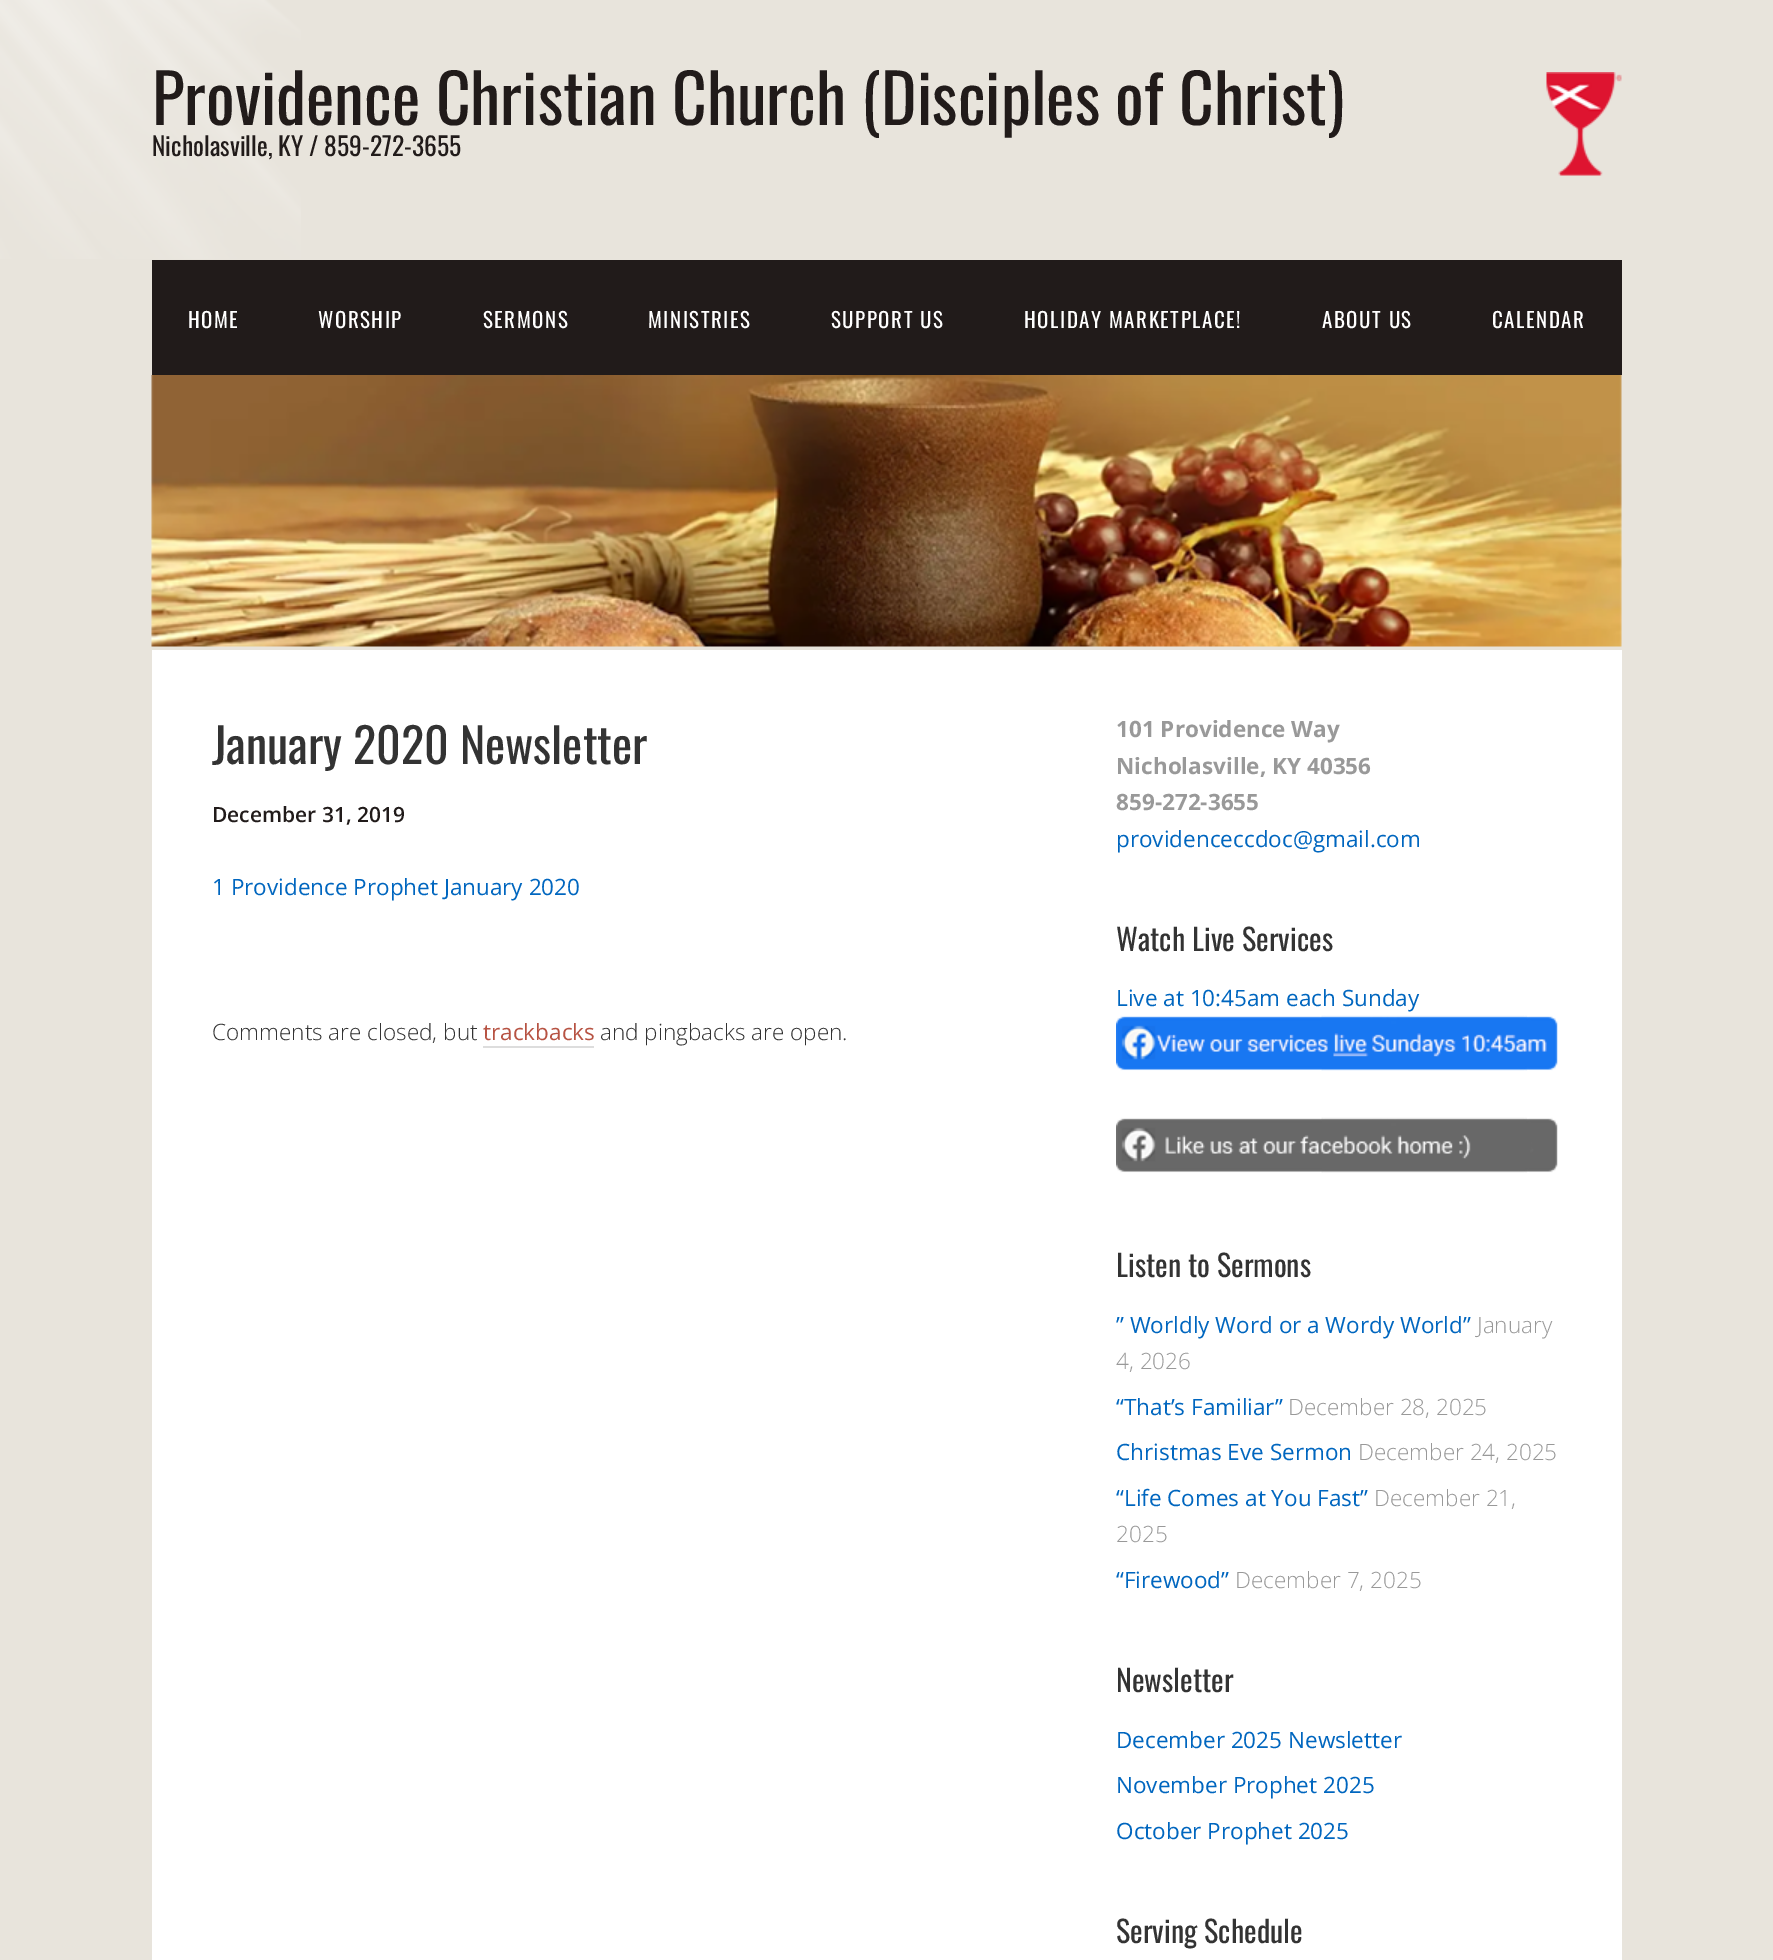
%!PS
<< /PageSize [1773 1960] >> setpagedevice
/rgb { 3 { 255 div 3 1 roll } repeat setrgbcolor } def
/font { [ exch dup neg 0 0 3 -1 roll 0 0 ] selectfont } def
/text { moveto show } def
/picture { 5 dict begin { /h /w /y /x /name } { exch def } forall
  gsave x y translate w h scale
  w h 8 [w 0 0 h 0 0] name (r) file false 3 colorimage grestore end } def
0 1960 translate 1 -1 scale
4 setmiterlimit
232 228 220 rgb
0 0 1773 1960 rectfill
(img_01.rgb) 0 0 301 259 picture
(img_02.rgb) 1546 72 76 104 picture
33 27 26 rgb
152 260 1470 115 rectfill
(img_03.rgb) 151 375 1471 272 picture
255 255 255 rgb
152 650 1470 1310 rectfill
221 221 221 rgb
483 1046 111 2 rectfill
(img_04.rgb) 1116 1015 442 56 picture
(img_05.rgb) 1116 1117 442 56 picture
/Oswald-Regular 67.5 font
33 27 26 rgb
(Providence Christian Church \(Disciples of Christ\)) 152 125 text
/Oswald-Regular 25.5 font
(Nicholasville, KY / 859-272-3655) 152 156 text
/Oswald-Regular 21 font
255 255 255 rgb
188 328 moveto 1.5 0 (HOME) ashow
318 328 moveto 1.5 0 (WORSHIP) ashow
483 328 moveto 1.5 0 (SERMONS) ashow
648 328 moveto 1.5 0 (MINISTRIES) ashow
831 328 moveto 1.5 0 (SUPPORT US) ashow
1024 328 moveto 1.5 0 (HOLIDAY MARKETPLACE!) ashow
1322 328 moveto 1.5 0 (ABOUT US) ashow
1492 328 moveto 1.5 0 (CALENDAR) ashow
/Oswald-Regular 48 font
51 51 51 rgb
(January 2020 Newsletter) 212 764 text
/OpenSans-SemiBold 21 font
33 27 26 rgb
(December 31, 2019) 212 822 text
/OpenSans-Regular 22.5 font
0 102 191 rgb
(1 Providence Prophet January 2020) 212 895 text
/OpenSans-Light 22.5 font
51 51 51 rgb
(Comments are closed, but) 212 1040 text
/OpenSans-Regular 22.5 font
183 83 67 rgb
(trackbacks) 483 1040 text
/OpenSans-Light 22.5 font
51 51 51 rgb
(and pingbacks are open.) 600 1040 text
/OpenSans-Bold 22.5 font
153 153 153 rgb
(101 Providence Way) 1116 737 text
(Nicholasville, KY 40356) 1116 774 text
(859-272-3655) 1116 810 text
/OpenSans-Regular 22.5 font
0 102 191 rgb
(providenceccdoc@gmail.com) 1116 847 text
/Oswald-Regular 30 font
51 51 51 rgb
(Watch Live Services) 1116 951 text
/OpenSans-Regular 22.5 font
0 102 191 rgb
(Live at 10:45am each Sunday) 1116 1006 text
/Oswald-Regular 30 font
51 51 51 rgb
(Listen to Sermons) 1116 1277 text
/OpenSans-Regular 22.5 font
0 102 191 rgb
(” Worldly Word or a Wordy World”) 1116 1333 text
/OpenSans-Light 22.5 font
153 153 153 rgb
(January) 1477 1333 text
(4, 2026) 1116 1369 text
/OpenSans-Regular 22.5 font
0 102 191 rgb
(“That’s Familiar”) 1116 1415 text
/OpenSans-Light 22.5 font
153 153 153 rgb
(December 28, 2025) 1288 1415 text
/OpenSans-Regular 22.5 font
0 102 191 rgb
(Christmas Eve Sermon) 1116 1460 text
/OpenSans-Light 22.5 font
153 153 153 rgb
(December 24, 2025) 1358 1460 text
/OpenSans-Regular 22.5 font
0 102 191 rgb
(“Life Comes at You Fast”) 1116 1506 text
/OpenSans-Light 22.5 font
153 153 153 rgb
(December 21,) 1374 1506 text
(2025) 1116 1542 text
/OpenSans-Regular 22.5 font
0 102 191 rgb
(“Firewood”) 1116 1588 text
/OpenSans-Light 22.5 font
153 153 153 rgb
(December 7, 2025) 1235 1588 text
/Oswald-Regular 30 font
51 51 51 rgb
(Newsletter) 1116 1692 text
/OpenSans-Regular 22.5 font
0 102 191 rgb
(December 2025 Newsletter) 1116 1748 text
(November Prophet 2025) 1116 1793 text
(October Prophet 2025) 1116 1839 text
/Oswald-Regular 30 font
51 51 51 rgb
(Serving Schedule) 1116 1943 text
showpage
